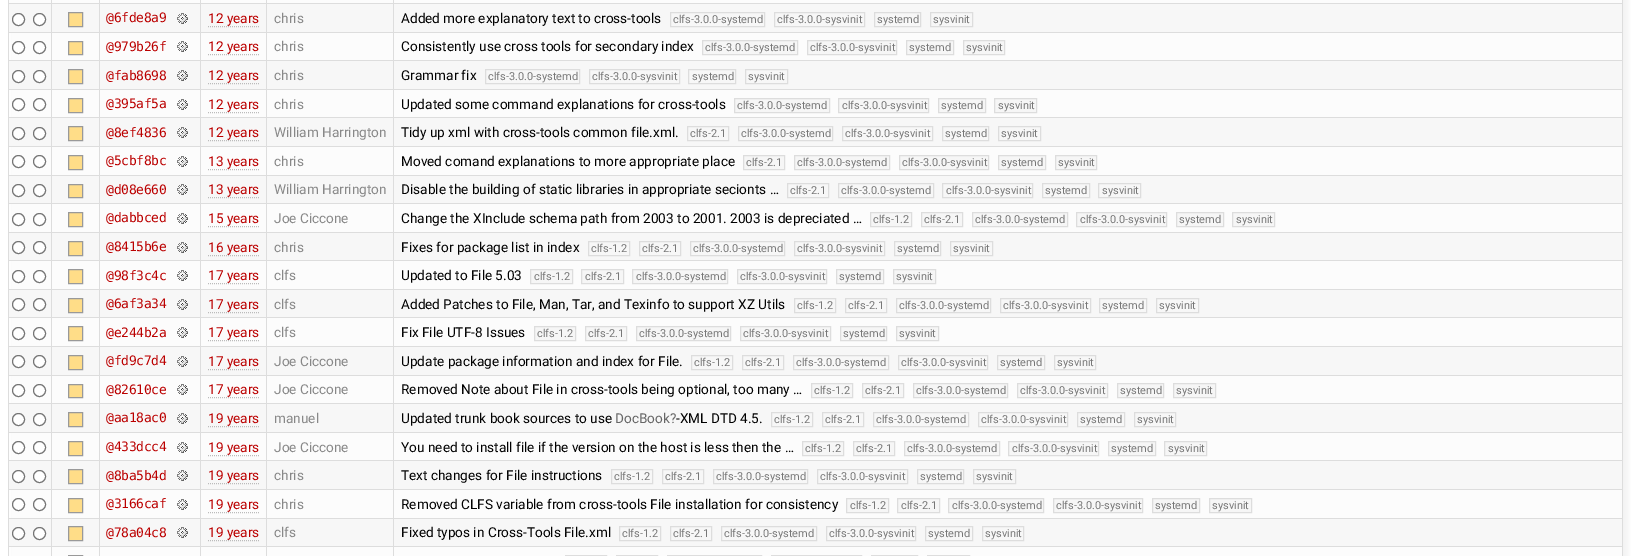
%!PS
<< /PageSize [1631 556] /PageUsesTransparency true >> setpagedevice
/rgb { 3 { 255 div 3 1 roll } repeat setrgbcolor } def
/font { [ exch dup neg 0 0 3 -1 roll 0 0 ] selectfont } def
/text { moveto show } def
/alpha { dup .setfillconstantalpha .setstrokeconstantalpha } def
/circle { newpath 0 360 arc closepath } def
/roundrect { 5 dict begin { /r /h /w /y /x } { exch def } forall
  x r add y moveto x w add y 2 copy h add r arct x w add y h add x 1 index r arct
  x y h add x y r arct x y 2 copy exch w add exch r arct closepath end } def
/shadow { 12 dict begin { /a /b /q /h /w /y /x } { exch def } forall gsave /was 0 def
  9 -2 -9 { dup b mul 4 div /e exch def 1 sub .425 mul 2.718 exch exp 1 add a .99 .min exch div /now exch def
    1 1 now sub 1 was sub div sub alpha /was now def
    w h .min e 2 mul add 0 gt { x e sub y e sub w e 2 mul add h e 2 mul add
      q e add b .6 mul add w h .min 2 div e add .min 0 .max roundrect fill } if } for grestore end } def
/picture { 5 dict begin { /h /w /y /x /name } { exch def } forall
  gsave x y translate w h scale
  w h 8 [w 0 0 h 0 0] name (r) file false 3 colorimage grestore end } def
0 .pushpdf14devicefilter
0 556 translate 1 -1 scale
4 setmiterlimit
255 255 255 rgb
0 0 1631 556 rectfill
242 242 242 rgb
13 -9 1615 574 0 3 1 shadow
252 252 252 rgb
12 547 1610 9 rectfill
221 221 221 rgb
8 546 1615 1 rectfill
8 3 1615 1 rectfill
8 32 1615 1 rectfill
8 60 1615 1 rectfill
8 89 1615 1 rectfill
8 117 1615 1 rectfill
8 146 1615 1 rectfill
8 175 1615 1 rectfill
8 203 1615 1 rectfill
8 232 1615 1 rectfill
8 260 1615 1 rectfill
8 289 1615 1 rectfill
8 317 1615 1 rectfill
8 346 1615 1 rectfill
8 375 1615 1 rectfill
8 403 1615 1 rectfill
8 432 1615 1 rectfill
8 460 1615 1 rectfill
8 489 1615 1 rectfill
8 518 1615 1 rectfill
8 0 1 556 rectfill
252 252 252 rgb
9 0 1614 3 rectfill
247 247 247 rgb
9 4 1613 28 rectfill
252 252 252 rgb
12 33 1610 27 rectfill
247 247 247 rgb
9 61 1613 28 rectfill
252 252 252 rgb
12 90 1610 27 rectfill
247 247 247 rgb
9 118 1613 28 rectfill
252 252 252 rgb
12 147 1610 28 rectfill
247 247 247 rgb
9 176 1613 27 rectfill
252 252 252 rgb
12 204 1610 28 rectfill
247 247 247 rgb
9 233 1613 27 rectfill
252 252 252 rgb
12 261 1610 28 rectfill
247 247 247 rgb
9 290 1613 27 rectfill
252 252 252 rgb
12 318 1610 28 rectfill
247 247 247 rgb
9 347 1613 28 rectfill
252 252 252 rgb
12 376 1610 27 rectfill
247 247 247 rgb
9 404 1613 28 rectfill
252 252 252 rgb
12 433 1610 27 rectfill
247 247 247 rgb
9 461 1613 28 rectfill
252 252 252 rgb
12 490 1610 28 rectfill
247 247 247 rgb
9 519 1613 27 rectfill
221 221 221 rgb
51 0 1 556 rectfill
153 153 153 rgb
68.5 555.5 14 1 rectstroke
221 221 221 rgb
99 0 1 556 rectfill
200 0 1 556 rectfill
266 0 1 556 rectfill
1622 0 1 556 rectfill
393 0 1 556 rectfill
565.5 555.5 41 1 rectstroke
616.5 555.5 41 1 rectstroke
667.5 555.5 94 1 rectstroke
771.5 555.5 90 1 rectstroke
871.5 555.5 46 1 rectstroke
927.5 555.5 42 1 rectstroke
255 255 255 rgb
18.5 19.5 6 circle gsave fill grestore
118 118 118 rgb
stroke
255 255 255 rgb
39.5 19.5 6 circle gsave fill grestore
118 118 118 rgb
stroke
255 221 136 rgb
68.5 12.5 moveto 14 0 rlineto 0 14 rlineto -14 0 rlineto closepath gsave fill grestore
153 153 153 rgb
stroke
(img_01.rgb) 177 13 11 11 picture
187 187 187 rgb
[1 1] 0 setdash
208 26.5 moveto 51 0 rlineto stroke
221 221 221 rgb
[] 0 setdash
670.5 12.5 94 14 rectstroke
774.5 12.5 90 14 rectstroke
874.5 12.5 46 14 rectstroke
930.5 12.5 42 14 rectstroke
255 255 255 rgb
18.5 47.5 6 circle gsave fill grestore
118 118 118 rgb
stroke
255 255 255 rgb
39.5 47.5 6 circle gsave fill grestore
118 118 118 rgb
stroke
255 221 136 rgb
68.5 41.5 moveto 14 0 rlineto 0 13 rlineto -14 0 rlineto closepath gsave fill grestore
153 153 153 rgb
stroke
(img_02.rgb) 177 41 11 11 picture
187 187 187 rgb
[1 1] 0 setdash
208 54.5 moveto 51 0 rlineto stroke
246 246 246 rgb
702.5 40.5 moveto 95 0 rlineto 0 14 rlineto -95 0 rlineto closepath gsave fill grestore
221 221 221 rgb
[] 0 setdash
stroke
246 246 246 rgb
807.5 40.5 moveto 89 0 rlineto 0 14 rlineto -89 0 rlineto closepath gsave fill grestore
221 221 221 rgb
stroke
246 246 246 rgb
906.5 40.5 moveto 47 0 rlineto 0 14 rlineto -47 0 rlineto closepath gsave fill grestore
221 221 221 rgb
stroke
246 246 246 rgb
963.5 40.5 moveto 41 0 rlineto 0 14 rlineto -41 0 rlineto closepath gsave fill grestore
221 221 221 rgb
stroke
255 255 255 rgb
18.5 76.5 6 circle gsave fill grestore
118 118 118 rgb
stroke
255 255 255 rgb
39.5 76.5 6 circle gsave fill grestore
118 118 118 rgb
stroke
255 221 136 rgb
68.5 69.5 moveto 14 0 rlineto 0 14 rlineto -14 0 rlineto closepath gsave fill grestore
153 153 153 rgb
stroke
(img_01.rgb) 177 70 11 11 picture
187 187 187 rgb
[1 1] 0 setdash
208 83.5 moveto 51 0 rlineto stroke
221 221 221 rgb
[] 0 setdash
485.5 69.5 94 14 rectstroke
589.5 69.5 90 14 rectstroke
688.5 69.5 47 14 rectstroke
745.5 69.5 42 14 rectstroke
255 255 255 rgb
18.5 104.5 6 circle gsave fill grestore
118 118 118 rgb
stroke
255 255 255 rgb
39.5 104.5 6 circle gsave fill grestore
118 118 118 rgb
stroke
255 221 136 rgb
68.5 98.5 moveto 14 0 rlineto 0 14 rlineto -14 0 rlineto closepath gsave fill grestore
153 153 153 rgb
stroke
(img_02.rgb) 177 99 11 11 picture
187 187 187 rgb
[1 1] 0 setdash
208 112.5 moveto 51 0 rlineto stroke
246 246 246 rgb
734.5 98.5 moveto 95 0 rlineto 0 14 rlineto -95 0 rlineto closepath gsave fill grestore
221 221 221 rgb
[] 0 setdash
stroke
246 246 246 rgb
838.5 98.5 moveto 90 0 rlineto 0 14 rlineto -90 0 rlineto closepath gsave fill grestore
221 221 221 rgb
stroke
246 246 246 rgb
938.5 98.5 moveto 47 0 rlineto 0 14 rlineto -47 0 rlineto closepath gsave fill grestore
221 221 221 rgb
stroke
246 246 246 rgb
994.5 98.5 moveto 42 0 rlineto 0 14 rlineto -42 0 rlineto closepath gsave fill grestore
221 221 221 rgb
stroke
255 255 255 rgb
18.5 133.5 6 circle gsave fill grestore
118 118 118 rgb
stroke
255 255 255 rgb
39.5 133.5 6 circle gsave fill grestore
118 118 118 rgb
stroke
255 221 136 rgb
68.5 126.5 moveto 14 0 rlineto 0 14 rlineto -14 0 rlineto closepath gsave fill grestore
153 153 153 rgb
stroke
(img_01.rgb) 177 127 11 11 picture
187 187 187 rgb
[1 1] 0 setdash
208 140.5 moveto 51 0 rlineto stroke
221 221 221 rgb
[] 0 setdash
687.5 126.5 41 14 rectstroke
738.5 126.5 94 14 rectstroke
842.5 126.5 90 14 rectstroke
942.5 126.5 46 14 rectstroke
998.5 126.5 42 14 rectstroke
255 255 255 rgb
18.5 161.5 6 circle gsave fill grestore
118 118 118 rgb
stroke
255 255 255 rgb
39.5 161.5 6 circle gsave fill grestore
118 118 118 rgb
stroke
255 221 136 rgb
68.5 155.5 moveto 14 0 rlineto 0 14 rlineto -14 0 rlineto closepath gsave fill grestore
153 153 153 rgb
stroke
(img_02.rgb) 177 156 11 11 picture
187 187 187 rgb
[1 1] 0 setdash
208 169.5 moveto 51 0 rlineto stroke
246 246 246 rgb
743.5 155.5 moveto 41 0 rlineto 0 14 rlineto -41 0 rlineto closepath gsave fill grestore
221 221 221 rgb
[] 0 setdash
stroke
246 246 246 rgb
794.5 155.5 moveto 95 0 rlineto 0 14 rlineto -95 0 rlineto closepath gsave fill grestore
221 221 221 rgb
stroke
246 246 246 rgb
899.5 155.5 moveto 89 0 rlineto 0 14 rlineto -89 0 rlineto closepath gsave fill grestore
221 221 221 rgb
stroke
246 246 246 rgb
998.5 155.5 moveto 47 0 rlineto 0 14 rlineto -47 0 rlineto closepath gsave fill grestore
221 221 221 rgb
stroke
246 246 246 rgb
1055.5 155.5 moveto 41 0 rlineto 0 14 rlineto -41 0 rlineto closepath gsave fill grestore
221 221 221 rgb
stroke
255 255 255 rgb
18.5 190.5 6 circle gsave fill grestore
118 118 118 rgb
stroke
255 255 255 rgb
39.5 190.5 6 circle gsave fill grestore
118 118 118 rgb
stroke
255 221 136 rgb
68.5 184.5 moveto 14 0 rlineto 0 13 rlineto -14 0 rlineto closepath gsave fill grestore
153 153 153 rgb
stroke
(img_01.rgb) 177 184 11 11 picture
187 187 187 rgb
[1 1] 0 setdash
208 197.5 moveto 51 0 rlineto stroke
221 221 221 rgb
[] 0 setdash
787.5 183.5 41 14 rectstroke
838.5 183.5 95 14 rectstroke
942.5 183.5 90 14 rectstroke
1042.5 183.5 47 14 rectstroke
1098.5 183.5 42 14 rectstroke
255 255 255 rgb
18.5 219.5 6 circle gsave fill grestore
118 118 118 rgb
stroke
255 255 255 rgb
39.5 219.5 6 circle gsave fill grestore
118 118 118 rgb
stroke
255 221 136 rgb
68.5 212.5 moveto 14 0 rlineto 0 14 rlineto -14 0 rlineto closepath gsave fill grestore
153 153 153 rgb
stroke
(img_02.rgb) 177 213 11 11 picture
187 187 187 rgb
[1 1] 0 setdash
208 226.5 moveto 51 0 rlineto stroke
246 246 246 rgb
870.5 212.5 moveto 41 0 rlineto 0 14 rlineto -41 0 rlineto closepath gsave fill grestore
221 221 221 rgb
[] 0 setdash
stroke
246 246 246 rgb
921.5 212.5 moveto 41 0 rlineto 0 14 rlineto -41 0 rlineto closepath gsave fill grestore
221 221 221 rgb
stroke
246 246 246 rgb
972.5 212.5 moveto 95 0 rlineto 0 14 rlineto -95 0 rlineto closepath gsave fill grestore
221 221 221 rgb
stroke
246 246 246 rgb
1076.5 212.5 moveto 90 0 rlineto 0 14 rlineto -90 0 rlineto closepath gsave fill grestore
221 221 221 rgb
stroke
246 246 246 rgb
1176.5 212.5 moveto 47 0 rlineto 0 14 rlineto -47 0 rlineto closepath gsave fill grestore
221 221 221 rgb
stroke
246 246 246 rgb
1232.5 212.5 moveto 42 0 rlineto 0 14 rlineto -42 0 rlineto closepath gsave fill grestore
221 221 221 rgb
stroke
255 255 255 rgb
18.5 247.5 6 circle gsave fill grestore
118 118 118 rgb
stroke
255 255 255 rgb
39.5 247.5 6 circle gsave fill grestore
118 118 118 rgb
stroke
255 221 136 rgb
68.5 241.5 moveto 14 0 rlineto 0 14 rlineto -14 0 rlineto closepath gsave fill grestore
153 153 153 rgb
stroke
(img_01.rgb) 177 242 11 11 picture
187 187 187 rgb
[1 1] 0 setdash
208 255.5 moveto 51 0 rlineto stroke
221 221 221 rgb
[] 0 setdash
588.5 241.5 41 14 rectstroke
639.5 241.5 41 14 rectstroke
690.5 241.5 94 14 rectstroke
794.5 241.5 90 14 rectstroke
894.5 241.5 46 14 rectstroke
950.5 241.5 42 14 rectstroke
255 255 255 rgb
18.5 276.5 6 circle gsave fill grestore
118 118 118 rgb
stroke
255 255 255 rgb
39.5 276.5 6 circle gsave fill grestore
118 118 118 rgb
stroke
255 221 136 rgb
68.5 269.5 moveto 14 0 rlineto 0 14 rlineto -14 0 rlineto closepath gsave fill grestore
153 153 153 rgb
stroke
(img_02.rgb) 177 270 11 11 picture
187 187 187 rgb
[1 1] 0 setdash
208 283.5 moveto 51 0 rlineto stroke
246 246 246 rgb
530.5 269.5 moveto 42 0 rlineto 0 14 rlineto -42 0 rlineto closepath gsave fill grestore
221 221 221 rgb
[] 0 setdash
stroke
246 246 246 rgb
581.5 269.5 moveto 42 0 rlineto 0 14 rlineto -42 0 rlineto closepath gsave fill grestore
221 221 221 rgb
stroke
246 246 246 rgb
632.5 269.5 moveto 95 0 rlineto 0 14 rlineto -95 0 rlineto closepath gsave fill grestore
221 221 221 rgb
stroke
246 246 246 rgb
737.5 269.5 moveto 89 0 rlineto 0 14 rlineto -89 0 rlineto closepath gsave fill grestore
221 221 221 rgb
stroke
246 246 246 rgb
836.5 269.5 moveto 47 0 rlineto 0 14 rlineto -47 0 rlineto closepath gsave fill grestore
221 221 221 rgb
stroke
246 246 246 rgb
893.5 269.5 moveto 42 0 rlineto 0 14 rlineto -42 0 rlineto closepath gsave fill grestore
221 221 221 rgb
stroke
255 255 255 rgb
18.5 304.5 6 circle gsave fill grestore
118 118 118 rgb
stroke
255 255 255 rgb
39.5 304.5 6 circle gsave fill grestore
118 118 118 rgb
stroke
255 221 136 rgb
68.5 298.5 moveto 14 0 rlineto 0 14 rlineto -14 0 rlineto closepath gsave fill grestore
153 153 153 rgb
stroke
(img_01.rgb) 177 299 11 11 picture
187 187 187 rgb
[1 1] 0 setdash
208 312.5 moveto 51 0 rlineto stroke
221 221 221 rgb
[] 0 setdash
794.5 298.5 41 14 rectstroke
845.5 298.5 41 14 rectstroke
896.5 298.5 94 14 rectstroke
1000.5 298.5 90 14 rectstroke
1099.5 298.5 47 14 rectstroke
1156.5 298.5 42 14 rectstroke
255 255 255 rgb
18.5 333.5 6 circle gsave fill grestore
118 118 118 rgb
stroke
255 255 255 rgb
39.5 333.5 6 circle gsave fill grestore
118 118 118 rgb
stroke
255 221 136 rgb
68.5 326.5 moveto 14 0 rlineto 0 14 rlineto -14 0 rlineto closepath gsave fill grestore
153 153 153 rgb
stroke
(img_02.rgb) 177 327 11 11 picture
187 187 187 rgb
[1 1] 0 setdash
208 340.5 moveto 51 0 rlineto stroke
246 246 246 rgb
534.5 326.5 moveto 41 0 rlineto 0 14 rlineto -41 0 rlineto closepath gsave fill grestore
221 221 221 rgb
[] 0 setdash
stroke
246 246 246 rgb
585.5 326.5 moveto 41 0 rlineto 0 14 rlineto -41 0 rlineto closepath gsave fill grestore
221 221 221 rgb
stroke
246 246 246 rgb
636.5 326.5 moveto 94 0 rlineto 0 14 rlineto -94 0 rlineto closepath gsave fill grestore
221 221 221 rgb
stroke
246 246 246 rgb
740.5 326.5 moveto 90 0 rlineto 0 14 rlineto -90 0 rlineto closepath gsave fill grestore
221 221 221 rgb
stroke
246 246 246 rgb
840.5 326.5 moveto 46 0 rlineto 0 14 rlineto -46 0 rlineto closepath gsave fill grestore
221 221 221 rgb
stroke
246 246 246 rgb
896.5 326.5 moveto 42 0 rlineto 0 14 rlineto -42 0 rlineto closepath gsave fill grestore
221 221 221 rgb
stroke
255 255 255 rgb
18.5 361.5 6 circle gsave fill grestore
118 118 118 rgb
stroke
255 255 255 rgb
39.5 361.5 6 circle gsave fill grestore
118 118 118 rgb
stroke
255 221 136 rgb
68.5 355.5 moveto 14 0 rlineto 0 14 rlineto -14 0 rlineto closepath gsave fill grestore
153 153 153 rgb
stroke
(img_01.rgb) 177 356 11 11 picture
187 187 187 rgb
[1 1] 0 setdash
208 369.5 moveto 51 0 rlineto stroke
221 221 221 rgb
[] 0 setdash
691.5 355.5 41 14 rectstroke
742.5 355.5 41 14 rectstroke
793.5 355.5 95 14 rectstroke
898.5 355.5 89 14 rectstroke
997.5 355.5 47 14 rectstroke
1054.5 355.5 41 14 rectstroke
255 255 255 rgb
18.5 390.5 6 circle gsave fill grestore
118 118 118 rgb
stroke
255 255 255 rgb
39.5 390.5 6 circle gsave fill grestore
118 118 118 rgb
stroke
255 221 136 rgb
68.5 384.5 moveto 14 0 rlineto 0 13 rlineto -14 0 rlineto closepath gsave fill grestore
153 153 153 rgb
stroke
(img_02.rgb) 177 384 11 11 picture
187 187 187 rgb
[1 1] 0 setdash
208 397.5 moveto 51 0 rlineto stroke
246 246 246 rgb
811.5 383.5 moveto 41 0 rlineto 0 14 rlineto -41 0 rlineto closepath gsave fill grestore
221 221 221 rgb
[] 0 setdash
stroke
246 246 246 rgb
862.5 383.5 moveto 41 0 rlineto 0 14 rlineto -41 0 rlineto closepath gsave fill grestore
221 221 221 rgb
stroke
246 246 246 rgb
913.5 383.5 moveto 94 0 rlineto 0 14 rlineto -94 0 rlineto closepath gsave fill grestore
221 221 221 rgb
stroke
246 246 246 rgb
1017.5 383.5 moveto 90 0 rlineto 0 14 rlineto -90 0 rlineto closepath gsave fill grestore
221 221 221 rgb
stroke
246 246 246 rgb
1117.5 383.5 moveto 46 0 rlineto 0 14 rlineto -46 0 rlineto closepath gsave fill grestore
221 221 221 rgb
stroke
246 246 246 rgb
1173.5 383.5 moveto 42 0 rlineto 0 14 rlineto -42 0 rlineto closepath gsave fill grestore
221 221 221 rgb
stroke
255 255 255 rgb
18.5 419.5 6 circle gsave fill grestore
118 118 118 rgb
stroke
255 255 255 rgb
39.5 419.5 6 circle gsave fill grestore
118 118 118 rgb
stroke
255 221 136 rgb
68.5 412.5 moveto 14 0 rlineto 0 14 rlineto -14 0 rlineto closepath gsave fill grestore
153 153 153 rgb
stroke
(img_01.rgb) 177 413 11 11 picture
187 187 187 rgb
[1 1] 0 setdash
208 426.5 moveto 51 0 rlineto stroke
221 221 221 rgb
[] 0 setdash
771.5 412.5 41 14 rectstroke
822.5 412.5 41 14 rectstroke
873.5 412.5 95 14 rectstroke
978.5 412.5 89 14 rectstroke
1077.5 412.5 47 14 rectstroke
1134.5 412.5 41 14 rectstroke
255 255 255 rgb
18.5 447.5 6 circle gsave fill grestore
118 118 118 rgb
stroke
255 255 255 rgb
39.5 447.5 6 circle gsave fill grestore
118 118 118 rgb
stroke
255 221 136 rgb
68.5 441.5 moveto 14 0 rlineto 0 14 rlineto -14 0 rlineto closepath gsave fill grestore
153 153 153 rgb
stroke
(img_02.rgb) 177 442 11 11 picture
187 187 187 rgb
[1 1] 0 setdash
208 455.5 moveto 51 0 rlineto stroke
246 246 246 rgb
802.5 441.5 moveto 41 0 rlineto 0 14 rlineto -41 0 rlineto closepath gsave fill grestore
221 221 221 rgb
[] 0 setdash
stroke
246 246 246 rgb
853.5 441.5 moveto 41 0 rlineto 0 14 rlineto -41 0 rlineto closepath gsave fill grestore
221 221 221 rgb
stroke
246 246 246 rgb
904.5 441.5 moveto 95 0 rlineto 0 14 rlineto -95 0 rlineto closepath gsave fill grestore
221 221 221 rgb
stroke
246 246 246 rgb
1008.5 441.5 moveto 90 0 rlineto 0 14 rlineto -90 0 rlineto closepath gsave fill grestore
221 221 221 rgb
stroke
246 246 246 rgb
1108.5 441.5 moveto 47 0 rlineto 0 14 rlineto -47 0 rlineto closepath gsave fill grestore
221 221 221 rgb
stroke
246 246 246 rgb
1164.5 441.5 moveto 42 0 rlineto 0 14 rlineto -42 0 rlineto closepath gsave fill grestore
221 221 221 rgb
stroke
255 255 255 rgb
18.5 476.5 6 circle gsave fill grestore
118 118 118 rgb
stroke
255 255 255 rgb
39.5 476.5 6 circle gsave fill grestore
118 118 118 rgb
stroke
255 221 136 rgb
68.5 469.5 moveto 14 0 rlineto 0 14 rlineto -14 0 rlineto closepath gsave fill grestore
153 153 153 rgb
stroke
(img_01.rgb) 177 470 11 11 picture
187 187 187 rgb
[1 1] 0 setdash
208 483.5 moveto 51 0 rlineto stroke
221 221 221 rgb
[] 0 setdash
611.5 469.5 41 14 rectstroke
662.5 469.5 41 14 rectstroke
713.5 469.5 94 14 rectstroke
817.5 469.5 90 14 rectstroke
917.5 469.5 46 14 rectstroke
973.5 469.5 42 14 rectstroke
255 255 255 rgb
18.5 504.5 6 circle gsave fill grestore
118 118 118 rgb
stroke
255 255 255 rgb
39.5 504.5 6 circle gsave fill grestore
118 118 118 rgb
stroke
255 221 136 rgb
68.5 498.5 moveto 14 0 rlineto 0 14 rlineto -14 0 rlineto closepath gsave fill grestore
153 153 153 rgb
stroke
(img_02.rgb) 177 499 11 11 picture
187 187 187 rgb
[1 1] 0 setdash
208 512.5 moveto 51 0 rlineto stroke
246 246 246 rgb
846.5 498.5 moveto 42 0 rlineto 0 14 rlineto -42 0 rlineto closepath gsave fill grestore
221 221 221 rgb
[] 0 setdash
stroke
246 246 246 rgb
897.5 498.5 moveto 42 0 rlineto 0 14 rlineto -42 0 rlineto closepath gsave fill grestore
221 221 221 rgb
stroke
246 246 246 rgb
948.5 498.5 moveto 95 0 rlineto 0 14 rlineto -95 0 rlineto closepath gsave fill grestore
221 221 221 rgb
stroke
246 246 246 rgb
1053.5 498.5 moveto 89 0 rlineto 0 14 rlineto -89 0 rlineto closepath gsave fill grestore
221 221 221 rgb
stroke
246 246 246 rgb
1152.5 498.5 moveto 47 0 rlineto 0 14 rlineto -47 0 rlineto closepath gsave fill grestore
221 221 221 rgb
stroke
246 246 246 rgb
1209.5 498.5 moveto 42 0 rlineto 0 14 rlineto -42 0 rlineto closepath gsave fill grestore
221 221 221 rgb
stroke
255 255 255 rgb
18.5 533.5 6 circle gsave fill grestore
118 118 118 rgb
stroke
255 255 255 rgb
39.5 533.5 6 circle gsave fill grestore
118 118 118 rgb
stroke
255 221 136 rgb
68.5 526.5 moveto 14 0 rlineto 0 14 rlineto -14 0 rlineto closepath gsave fill grestore
153 153 153 rgb
stroke
(img_01.rgb) 177 527 11 11 picture
187 187 187 rgb
[1 1] 0 setdash
208 540.5 moveto 51 0 rlineto stroke
221 221 221 rgb
[] 0 setdash
619.5 526.5 41 14 rectstroke
670.5 526.5 41 14 rectstroke
721.5 526.5 95 14 rectstroke
826.5 526.5 89 14 rectstroke
925.5 526.5 47 14 rectstroke
982.5 526.5 41 14 rectstroke
/DejaVuSansMono-Regular 13 font
187 0 0 rgb
106 22 moveto -0.25 0 (@6fde8a9) ashow
/Roboto-Regular 13.6 font
(12 years) 208 23 text
136 136 136 rgb
(chris) 274 23 text
0 0 0 rgb
(Added more explanatory text to cross-tools) 401 23 text
/Roboto-Regular 11 font
119 119 119 rgb
(clfs-3.0.0-systemd) 673 23 text
(clfs-3.0.0-sysvinit) 777 23 text
(systemd) 877 23 text
(sysvinit) 933 23 text
/DejaVuSansMono-Regular 13 font
187 0 0 rgb
106 51 moveto -0.25 0 (@979b26f) ashow
/Roboto-Regular 13.6 font
(12 years) 208 51 text
136 136 136 rgb
(chris) 274 51 text
0 0 0 rgb
(Consistently use cross tools for secondary index) 401 51 text
/Roboto-Regular 11 font
119 119 119 rgb
(clfs-3.0.0-systemd) 705 51 text
(clfs-3.0.0-sysvinit) 810 51 text
(systemd) 909 51 text
(sysvinit) 966 51 text
/DejaVuSansMono-Regular 13 font
187 0 0 rgb
106 80 moveto -0.25 0 (@fab8698) ashow
/Roboto-Regular 13.6 font
(12 years) 208 80 text
136 136 136 rgb
(chris) 274 80 text
0 0 0 rgb
(Grammar fix) 401 80 text
/Roboto-Regular 11 font
119 119 119 rgb
(clfs-3.0.0-systemd) 488 80 text
(clfs-3.0.0-sysvinit) 592 80 text
(systemd) 692 80 text
(sysvinit) 748 80 text
/DejaVuSansMono-Regular 13 font
187 0 0 rgb
106 108 moveto -0.25 0 (@395af5a) ashow
/Roboto-Regular 13.6 font
(12 years) 208 109 text
136 136 136 rgb
(chris) 274 109 text
0 0 0 rgb
(Updated some command explanations for cross-tools) 401 109 text
/Roboto-Regular 11 font
119 119 119 rgb
(clfs-3.0.0-systemd) 737 109 text
(clfs-3.0.0-sysvinit) 842 109 text
(systemd) 941 109 text
(sysvinit) 998 109 text
/DejaVuSansMono-Regular 13 font
187 0 0 rgb
106 137 moveto -0.25 0 (@8ef4836) ashow
/Roboto-Regular 13.6 font
(12 years) 208 137 text
136 136 136 rgb
(William Harrington) 274 137 text
0 0 0 rgb
(Tidy up xml with cross-tools common file.xml.) 401 137 text
/Roboto-Regular 11 font
119 119 119 rgb
(clfs-2.1) 690 137 text
(clfs-3.0.0-systemd) 741 137 text
(clfs-3.0.0-sysvinit) 845 137 text
(systemd) 945 137 text
(sysvinit) 1001 137 text
/DejaVuSansMono-Regular 13 font
187 0 0 rgb
106 165 moveto -0.25 0 (@5cbf8bc) ashow
/Roboto-Regular 13.6 font
(13 years) 208 166 text
136 136 136 rgb
(chris) 274 166 text
0 0 0 rgb
(Moved comand explanations to more appropriate place) 401 166 text
/Roboto-Regular 11 font
119 119 119 rgb
(clfs-2.1) 746 166 text
(clfs-3.0.0-systemd) 797 166 text
(clfs-3.0.0-sysvinit) 902 166 text
(systemd) 1001 166 text
(sysvinit) 1058 166 text
/DejaVuSansMono-Regular 13 font
187 0 0 rgb
106 194 moveto -0.25 0 (@d08e660) ashow
/Roboto-Regular 13.6 font
(13 years) 208 194 text
136 136 136 rgb
(William Harrington) 274 194 text
0 0 0 rgb
(Disable the building of static libraries in appropriate secionts …) 401 194 text
/Roboto-Regular 11 font
119 119 119 rgb
(clfs-2.1) 790 194 text
(clfs-3.0.0-systemd) 841 194 text
(clfs-3.0.0-sysvinit) 946 194 text
(systemd) 1045 194 text
(sysvinit) 1102 194 text
/DejaVuSansMono-Regular 13 font
187 0 0 rgb
106 222 moveto -0.25 0 (@dabbced) ashow
/Roboto-Regular 13.6 font
(15 years) 208 223 text
136 136 136 rgb
(Joe Ciccone) 274 223 text
0 0 0 rgb
(Change the XInclude schema path from 2003 to 2001. 2003 is depreciated …) 401 223 text
/Roboto-Regular 11 font
119 119 119 rgb
(clfs-1.2) 873 223 text
(clfs-2.1) 924 223 text
(clfs-3.0.0-systemd) 975 223 text
(clfs-3.0.0-sysvinit) 1080 223 text
(systemd) 1179 223 text
(sysvinit) 1236 223 text
/DejaVuSansMono-Regular 13 font
187 0 0 rgb
106 251 moveto -0.25 0 (@8415b6e) ashow
/Roboto-Regular 13.6 font
(16 years) 208 252 text
136 136 136 rgb
(chris) 274 252 text
0 0 0 rgb
(Fixes for package list in index) 401 252 text
/Roboto-Regular 11 font
119 119 119 rgb
(clfs-1.2) 591 252 text
(clfs-2.1) 642 252 text
(clfs-3.0.0-systemd) 693 252 text
(clfs-3.0.0-sysvinit) 797 252 text
(systemd) 897 252 text
(sysvinit) 953 252 text
/DejaVuSansMono-Regular 13 font
187 0 0 rgb
106 280 moveto -0.25 0 (@98f3c4c) ashow
/Roboto-Regular 13.6 font
(17 years) 208 280 text
136 136 136 rgb
(clfs) 274 280 text
0 0 0 rgb
(Updated to File 5.03) 401 280 text
/Roboto-Regular 11 font
119 119 119 rgb
(clfs-1.2) 534 280 text
(clfs-2.1) 585 280 text
(clfs-3.0.0-systemd) 636 280 text
(clfs-3.0.0-sysvinit) 740 280 text
(systemd) 839 280 text
(sysvinit) 896 280 text
/DejaVuSansMono-Regular 13 font
187 0 0 rgb
106 308 moveto -0.25 0 (@6af3a34) ashow
/Roboto-Regular 13.6 font
(17 years) 208 309 text
136 136 136 rgb
(clfs) 274 309 text
0 0 0 rgb
(Added Patches to File, Man, Tar, and Texinfo to support XZ Utils) 401 309 text
/Roboto-Regular 11 font
119 119 119 rgb
(clfs-1.2) 797 309 text
(clfs-2.1) 848 309 text
(clfs-3.0.0-systemd) 899 309 text
(clfs-3.0.0-sysvinit) 1003 309 text
(systemd) 1102 309 text
(sysvinit) 1159 309 text
/DejaVuSansMono-Regular 13 font
187 0 0 rgb
106 337 moveto -0.25 0 (@e244b2a) ashow
/Roboto-Regular 13.6 font
(17 years) 208 337 text
136 136 136 rgb
(clfs) 274 337 text
0 0 0 rgb
(Fix File UTF-8 Issues) 401 337 text
/Roboto-Regular 11 font
119 119 119 rgb
(clfs-1.2) 537 337 text
(clfs-2.1) 588 337 text
(clfs-3.0.0-systemd) 639 337 text
(clfs-3.0.0-sysvinit) 743 337 text
(systemd) 843 337 text
(sysvinit) 899 337 text
/DejaVuSansMono-Regular 13 font
187 0 0 rgb
106 365 moveto -0.25 0 (@fd9c7d4) ashow
/Roboto-Regular 13.6 font
(17 years) 208 366 text
136 136 136 rgb
(Joe Ciccone) 274 366 text
0 0 0 rgb
(Update package information and index for File.) 401 366 text
/Roboto-Regular 11 font
119 119 119 rgb
(clfs-1.2) 694 366 text
(clfs-2.1) 745 366 text
(clfs-3.0.0-systemd) 796 366 text
(clfs-3.0.0-sysvinit) 901 366 text
(systemd) 1000 366 text
(sysvinit) 1057 366 text
/DejaVuSansMono-Regular 13 font
187 0 0 rgb
106 394 moveto -0.25 0 (@82610ce) ashow
/Roboto-Regular 13.6 font
(17 years) 208 394 text
136 136 136 rgb
(Joe Ciccone) 274 394 text
0 0 0 rgb
(Removed Note about File in cross-tools being optional, too many …) 401 394 text
/Roboto-Regular 11 font
119 119 119 rgb
(clfs-1.2) 814 394 text
(clfs-2.1) 865 394 text
(clfs-3.0.0-systemd) 916 394 text
(clfs-3.0.0-sysvinit) 1020 394 text
(systemd) 1120 394 text
(sysvinit) 1176 394 text
/DejaVuSansMono-Regular 13 font
187 0 0 rgb
106 422 moveto -0.25 0 (@aa18ac0) ashow
/Roboto-Regular 13.6 font
(19 years) 208 423 text
136 136 136 rgb
(manuel) 274 423 text
0 0 0 rgb
(Updated trunk book sources to use) 401 423 text
102 102 102 rgb
(DocBook?) 615 423 text
0 0 0 rgb
(-XML DTD 4.5.) 676 423 text
/Roboto-Regular 11 font
119 119 119 rgb
(clfs-1.2) 774 423 text
(clfs-2.1) 825 423 text
(clfs-3.0.0-systemd) 876 423 text
(clfs-3.0.0-sysvinit) 981 423 text
(systemd) 1080 423 text
(sysvinit) 1137 423 text
/DejaVuSansMono-Regular 13 font
187 0 0 rgb
106 451 moveto -0.25 0 (@433dcc4) ashow
/Roboto-Regular 13.6 font
(19 years) 208 452 text
136 136 136 rgb
(Joe Ciccone) 274 452 text
0 0 0 rgb
(You need to install file if the version on the host is less then the …) 401 452 text
/Roboto-Regular 11 font
119 119 119 rgb
(clfs-1.2) 805 452 text
(clfs-2.1) 856 452 text
(clfs-3.0.0-systemd) 907 452 text
(clfs-3.0.0-sysvinit) 1012 452 text
(systemd) 1111 452 text
(sysvinit) 1168 452 text
/DejaVuSansMono-Regular 13 font
187 0 0 rgb
106 480 moveto -0.25 0 (@8ba5b4d) ashow
/Roboto-Regular 13.6 font
(19 years) 208 480 text
136 136 136 rgb
(chris) 274 480 text
0 0 0 rgb
(Text changes for File instructions) 401 480 text
/Roboto-Regular 11 font
119 119 119 rgb
(clfs-1.2) 614 480 text
(clfs-2.1) 665 480 text
(clfs-3.0.0-systemd) 716 480 text
(clfs-3.0.0-sysvinit) 820 480 text
(systemd) 920 480 text
(sysvinit) 976 480 text
/DejaVuSansMono-Regular 13 font
187 0 0 rgb
106 508 moveto -0.25 0 (@3166caf) ashow
/Roboto-Regular 13.6 font
(19 years) 208 509 text
136 136 136 rgb
(chris) 274 509 text
0 0 0 rgb
(Removed CLFS variable from cross-tools File installation for consistency) 401 509 text
/Roboto-Regular 11 font
119 119 119 rgb
(clfs-1.2) 850 509 text
(clfs-2.1) 901 509 text
(clfs-3.0.0-systemd) 952 509 text
(clfs-3.0.0-sysvinit) 1056 509 text
(systemd) 1155 509 text
(sysvinit) 1212 509 text
/DejaVuSansMono-Regular 13 font
187 0 0 rgb
106 537 moveto -0.25 0 (@78a04c8) ashow
/Roboto-Regular 13.6 font
(19 years) 208 537 text
136 136 136 rgb
(clfs) 274 537 text
0 0 0 rgb
(Fixed typos in Cross-Tools File.xml) 401 537 text
/Roboto-Regular 11 font
119 119 119 rgb
(clfs-1.2) 622 537 text
(clfs-2.1) 673 537 text
(clfs-3.0.0-systemd) 724 537 text
(clfs-3.0.0-sysvinit) 829 537 text
(systemd) 928 537 text
(sysvinit) 985 537 text
.poppdf14devicefilter showpage
